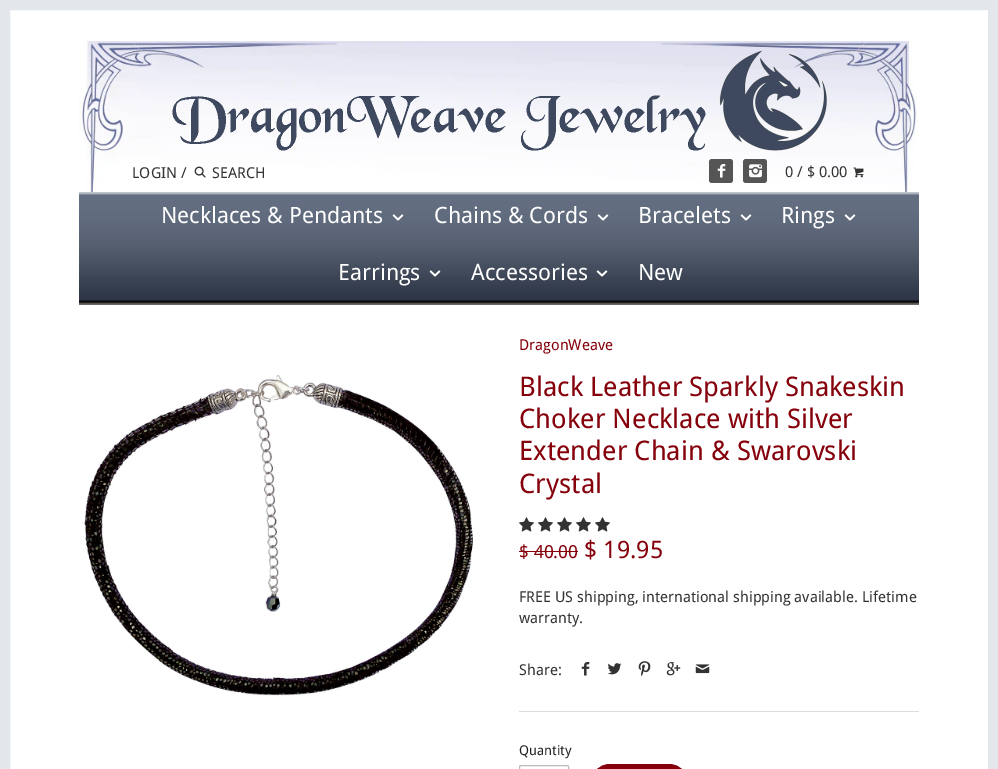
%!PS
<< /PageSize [998 769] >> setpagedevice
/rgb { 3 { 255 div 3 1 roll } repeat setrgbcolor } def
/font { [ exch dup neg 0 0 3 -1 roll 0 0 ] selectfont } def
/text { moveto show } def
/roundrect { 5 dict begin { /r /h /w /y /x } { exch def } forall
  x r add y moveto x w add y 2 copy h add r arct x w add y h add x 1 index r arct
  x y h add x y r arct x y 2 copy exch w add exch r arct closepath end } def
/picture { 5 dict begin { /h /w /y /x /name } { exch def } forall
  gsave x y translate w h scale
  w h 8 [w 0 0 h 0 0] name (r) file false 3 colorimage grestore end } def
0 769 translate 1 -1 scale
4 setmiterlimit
255 255 255 rgb
0 0 998 769 rectfill
227 230 234 rgb
10 setlinewidth
5 5 988 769 rectstroke
(img_05.rgb) 79 41 838 151 picture
(img_01.rgb) 194 166 12 12 picture
85 85 85 rgb
709 159 24 24 3 roundrect fill
(img_02.rgb) 717 164 9 14 picture
743 159 24 24 3 roundrect fill
(img_03.rgb) 749 164 13 14 picture
(img_04.rgb) 853 167 11 11 picture
(img_06.rgb) 172 50 655 101 picture
(img_07.rgb) 79 192 840 113 picture
(img_08.rgb) 392 214 12 7 picture
(img_08.rgb) 597 214 12 7 picture
(img_08.rgb) 740 214 12 7 picture
(img_08.rgb) 844 214 12 7 picture
(img_09.rgb) 429 270 12 7 picture
(img_09.rgb) 596 270 12 7 picture
(img_10.rgb) 84 375 389 322 picture
221 221 221 rgb
519 711 400 1 rectfill
(img_11.rgb) 519 517 15 15 picture
(img_11.rgb) 538 517 15 15 picture
(img_11.rgb) 557 517 15 15 picture
(img_11.rgb) 576 517 15 15 picture
(img_11.rgb) 595 517 15 15 picture
133 0 11 rgb
519 551 59 1 rectfill
(img_12.rgb) 581 662 9 14 picture
(img_13.rgb) 607 663 15 12 picture
(img_14.rgb) 638 661 13 16 picture
(img_15.rgb) 666 662 15 14 picture
(img_16.rgb) 695 664 15 10 picture
188 188 188 rgb
1 setlinewidth
519.5 765.5 49 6 1.5 roundrect stroke
133 0 11 rgb
591 765 97 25 19 roundrect gsave fill grestore
2 setlinewidth
stroke
/DroidSans-Regular 15 font
51 51 51 rgb
(LOGIN /) 132 178 text
(SEARCH) 212 178 text
(0 / $ 0.00) 785 177 text
/DroidSans-Regular 22.5 font
255 255 255 rgb
(Necklaces & Pendants) 161 223 text
(Chains & Cords) 434 223 text
(Bracelets) 638 223 text
(Rings) 781 223 text
(Earrings) 338 280 text
(Accessories) 471 280 text
(New) 638 280 text
/DroidSans-Regular 15 font
133 0 11 rgb
(DragonWeave) 519 350 text
/DroidSans-Regular 27 font
(Black Leather Sparkly Snakeskin) 519 396 text
(Choker Necklace with Silver) 519 428 text
(Extender Chain & Swarovski) 519 460 text
(Crystal) 519 493 text
/DroidSans-Regular 18 font
($ 40.00) 519 558 text
/DroidSans-Regular 24 font
($ 19.95) 584 558 text
/DroidSans-Regular 15 font
51 51 51 rgb
(FREE US shipping, international shipping available. Lifetime) 519 602 text
(warranty.) 519 623 text
(Share:) 519 675 text
/DroidSans-Regular 13.5 font
34 34 34 rgb
(Quantity) 519 755 text
showpage
